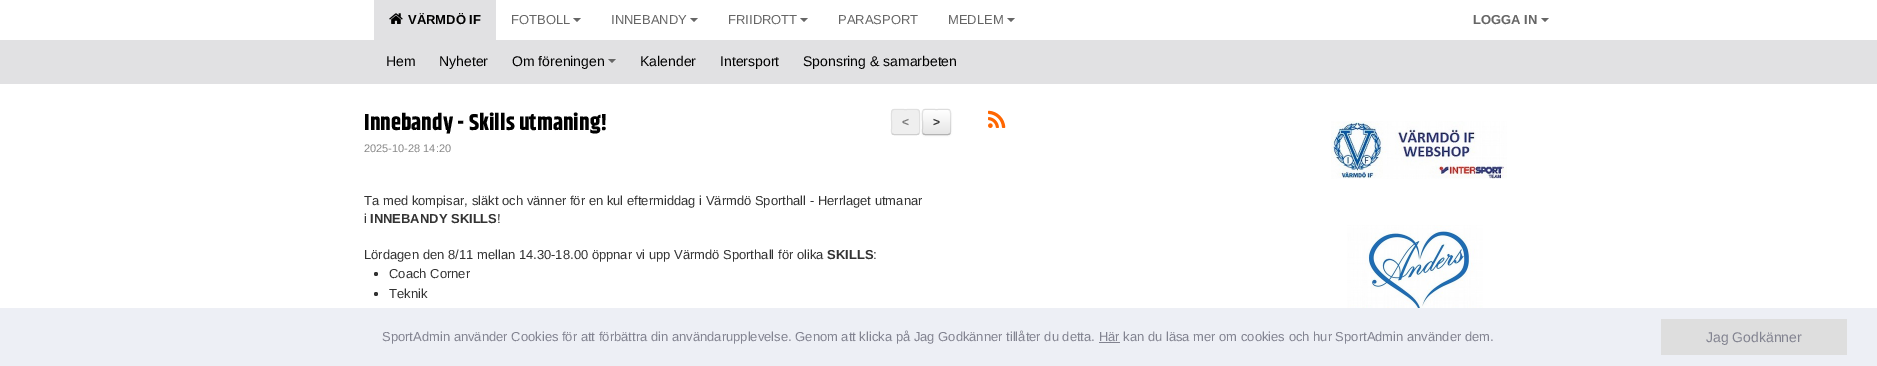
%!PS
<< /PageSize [1877 366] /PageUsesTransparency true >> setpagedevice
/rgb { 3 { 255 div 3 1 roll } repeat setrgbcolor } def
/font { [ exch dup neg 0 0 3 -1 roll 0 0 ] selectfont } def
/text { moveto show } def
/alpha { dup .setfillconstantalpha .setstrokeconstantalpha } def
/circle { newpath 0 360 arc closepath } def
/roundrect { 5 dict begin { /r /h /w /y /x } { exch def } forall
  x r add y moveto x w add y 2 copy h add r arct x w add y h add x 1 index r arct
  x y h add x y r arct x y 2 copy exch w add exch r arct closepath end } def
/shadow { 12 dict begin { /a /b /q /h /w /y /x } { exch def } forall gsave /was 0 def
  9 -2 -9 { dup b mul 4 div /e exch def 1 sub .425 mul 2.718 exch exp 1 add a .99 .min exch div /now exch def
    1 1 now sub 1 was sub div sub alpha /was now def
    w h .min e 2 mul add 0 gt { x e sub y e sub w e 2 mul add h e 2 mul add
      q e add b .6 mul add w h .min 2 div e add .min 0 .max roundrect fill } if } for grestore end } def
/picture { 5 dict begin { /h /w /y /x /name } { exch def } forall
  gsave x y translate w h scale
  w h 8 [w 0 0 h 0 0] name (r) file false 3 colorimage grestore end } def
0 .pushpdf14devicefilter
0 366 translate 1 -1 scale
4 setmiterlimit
255 255 255 rgb
0 0 1877 366 rectfill
225 225 227 rgb
374 0 122 40 rectfill
(img_01.rgb) 389 13 14 11 picture
102 102 102 rgb
573 18 moveto 8 0 rlineto -4 4 rlineto closepath fill
690 18 moveto 8 0 rlineto -4 4 rlineto closepath fill
800 18 moveto 8 0 rlineto -4 4 rlineto closepath fill
1007 18 moveto 8 0 rlineto -4 4 rlineto closepath fill
1541 18 moveto 8 0 rlineto -4 4 rlineto closepath fill
225 225 227 rgb
0 40 1877 44 rectfill
102 102 102 rgb
608 59 moveto 8 0 rlineto -4 4 rlineto closepath fill
51 51 51 rgb
376 274 2 circle fill
376 294 2 circle fill
0 0 0 rgb
922 110 29 26 3 1 0.05 shadow
239 239 239 rgb
891 109 29 26 3 roundrect fill
206 206 206 rgb
919 134 moveto -0.5 0 -1.5 0.5 -2 0.5 rcurveto -23 0 rlineto -0.5 0 -1.5 -0.5 -2 -0.5 rcurveto stroke
0.1 alpha
89 89 89 rgb
892 134 moveto -1 -1.5 -0.5 -4 -0.5 -5.5 rcurveto 0 -6.5 rlineto 0 -15.5 -2 -12.5 14 -12.5 rcurveto 16 0 14 -3 14 12.5 rcurveto 0 6.5 rlineto 0 1.5 0.5 4 -0.5 5.5 rcurveto stroke
1 alpha
245 245 245 rgb
922 109 29 26 3 roundrect fill
gsave
922 109 29 26 3 roundrect clip newpath
gsave 922 110 moveto 29 0 rlineto 0 24 rlineto -29 0 rlineto closepath clip newpath
<< /ShadingType 2 /ColorSpace /DeviceRGB /Coords [937 110 937 134] /Extend [true true] /Function << /FunctionType 2 /Domain [0 1] /C0 [1 1 1] /C1 [0.902 0.902 0.902] /N 1 >> >> shfill grestore
grestore
179 179 179 rgb
950 134 moveto -0.5 0 -1.5 0.5 -2 0.5 rcurveto -23 0 rlineto -0.5 0 -1.5 -0.5 -2 -0.5 rcurveto stroke
0.1 alpha
0 0 0 rgb
923 134 moveto -1 -1.5 -0.5 -4 -0.5 -5.5 rcurveto 0 -6.5 rlineto 0 -15.5 -2 -12.5 14 -12.5 rcurveto 16 0 14 -3 14 12.5 rcurveto 0 6.5 rlineto 0 1.5 0.5 4 -0.5 5.5 rcurveto stroke
1 alpha
(img_02.rgb) 988 110 18 18 picture
(img_03.rgb) 1331 121 176 58 picture
(img_04.rgb) 1347 225 136 83 picture
237 239 245 rgb
0 308 1877 58 rectfill
130 131 144 rgb
1099 342 21 1 rectfill
222 222 222 rgb
1661 319 186 36 rectfill
/LiberationSans-Bold 13 font
0 0 0 rgb
(VÄRMDÖ IF) 408 24 text
/LiberationSans-Regular 13 font
102 102 102 rgb
(FOTBOLL) 511 24 text
(INNEBANDY) 611 24 text
(FRIIDROTT) 728 24 text
(PARASPORT) 838 24 text
(MEDLEM) 948 24 text
/LiberationSans-Bold 13 font
(LOGGA IN) 1473 24 text
/LiberationSans-Regular 14 font
0 0 0 rgb
(Hem) 386 66 text
(Nyheter) 439 66 text
(Om föreningen) 512 66 text
(Kalender) 640 66 text
(Intersport) 720 66 text
(Sponsring & samarbeten) 803 66 text
/Khand-Bold 23 font
(Innebandy - Skills utmaning!) 364 130 text
/LiberationSans-Regular 11 font
136 136 136 rgb
(2025-10-28 14:20) 364 152 text
/LiberationSans-Regular 13 font
51 51 51 rgb
(Ta med kompisar, släkt och vänner för en kul eftermiddag i Värmdö Sporthall - Herrlaget utmanar) 364 205 text
(i) 364 223 text
/LiberationSans-Bold 13 font
(INNEBANDY SKILLS) 370 223 text
/LiberationSans-Regular 13 font
(!) 497 223 text
(Lördagen den 8/11 mellan 14.30-18.00 öppnar vi upp Värmdö Sporthall för olika) 364 259 text
/LiberationSans-Bold 13 font
(SKILLS) 827 259 text
/LiberationSans-Regular 13 font
(:) 873 259 text
(Coach Corner) 389 278 text
(Teknik) 389 298 text
/LiberationSans-Bold 12 font
122 122 122 rgb
(<) 902 126 text
51 51 51 rgb
(>) 933 126 text
/LiberationSans-Regular 13 font
130 131 144 rgb
(SportAdmin använder Cookies för att förbättra din användarupplevelse. Genom att klicka på Jag Godkänner tillåter du detta. Här kan du läsa mer om cookies och hur SportAdmin använder dem.) 382 341 text
/LiberationSans-Regular 14 font
(Jag Godkänner) 1706 342 text
.poppdf14devicefilter showpage
